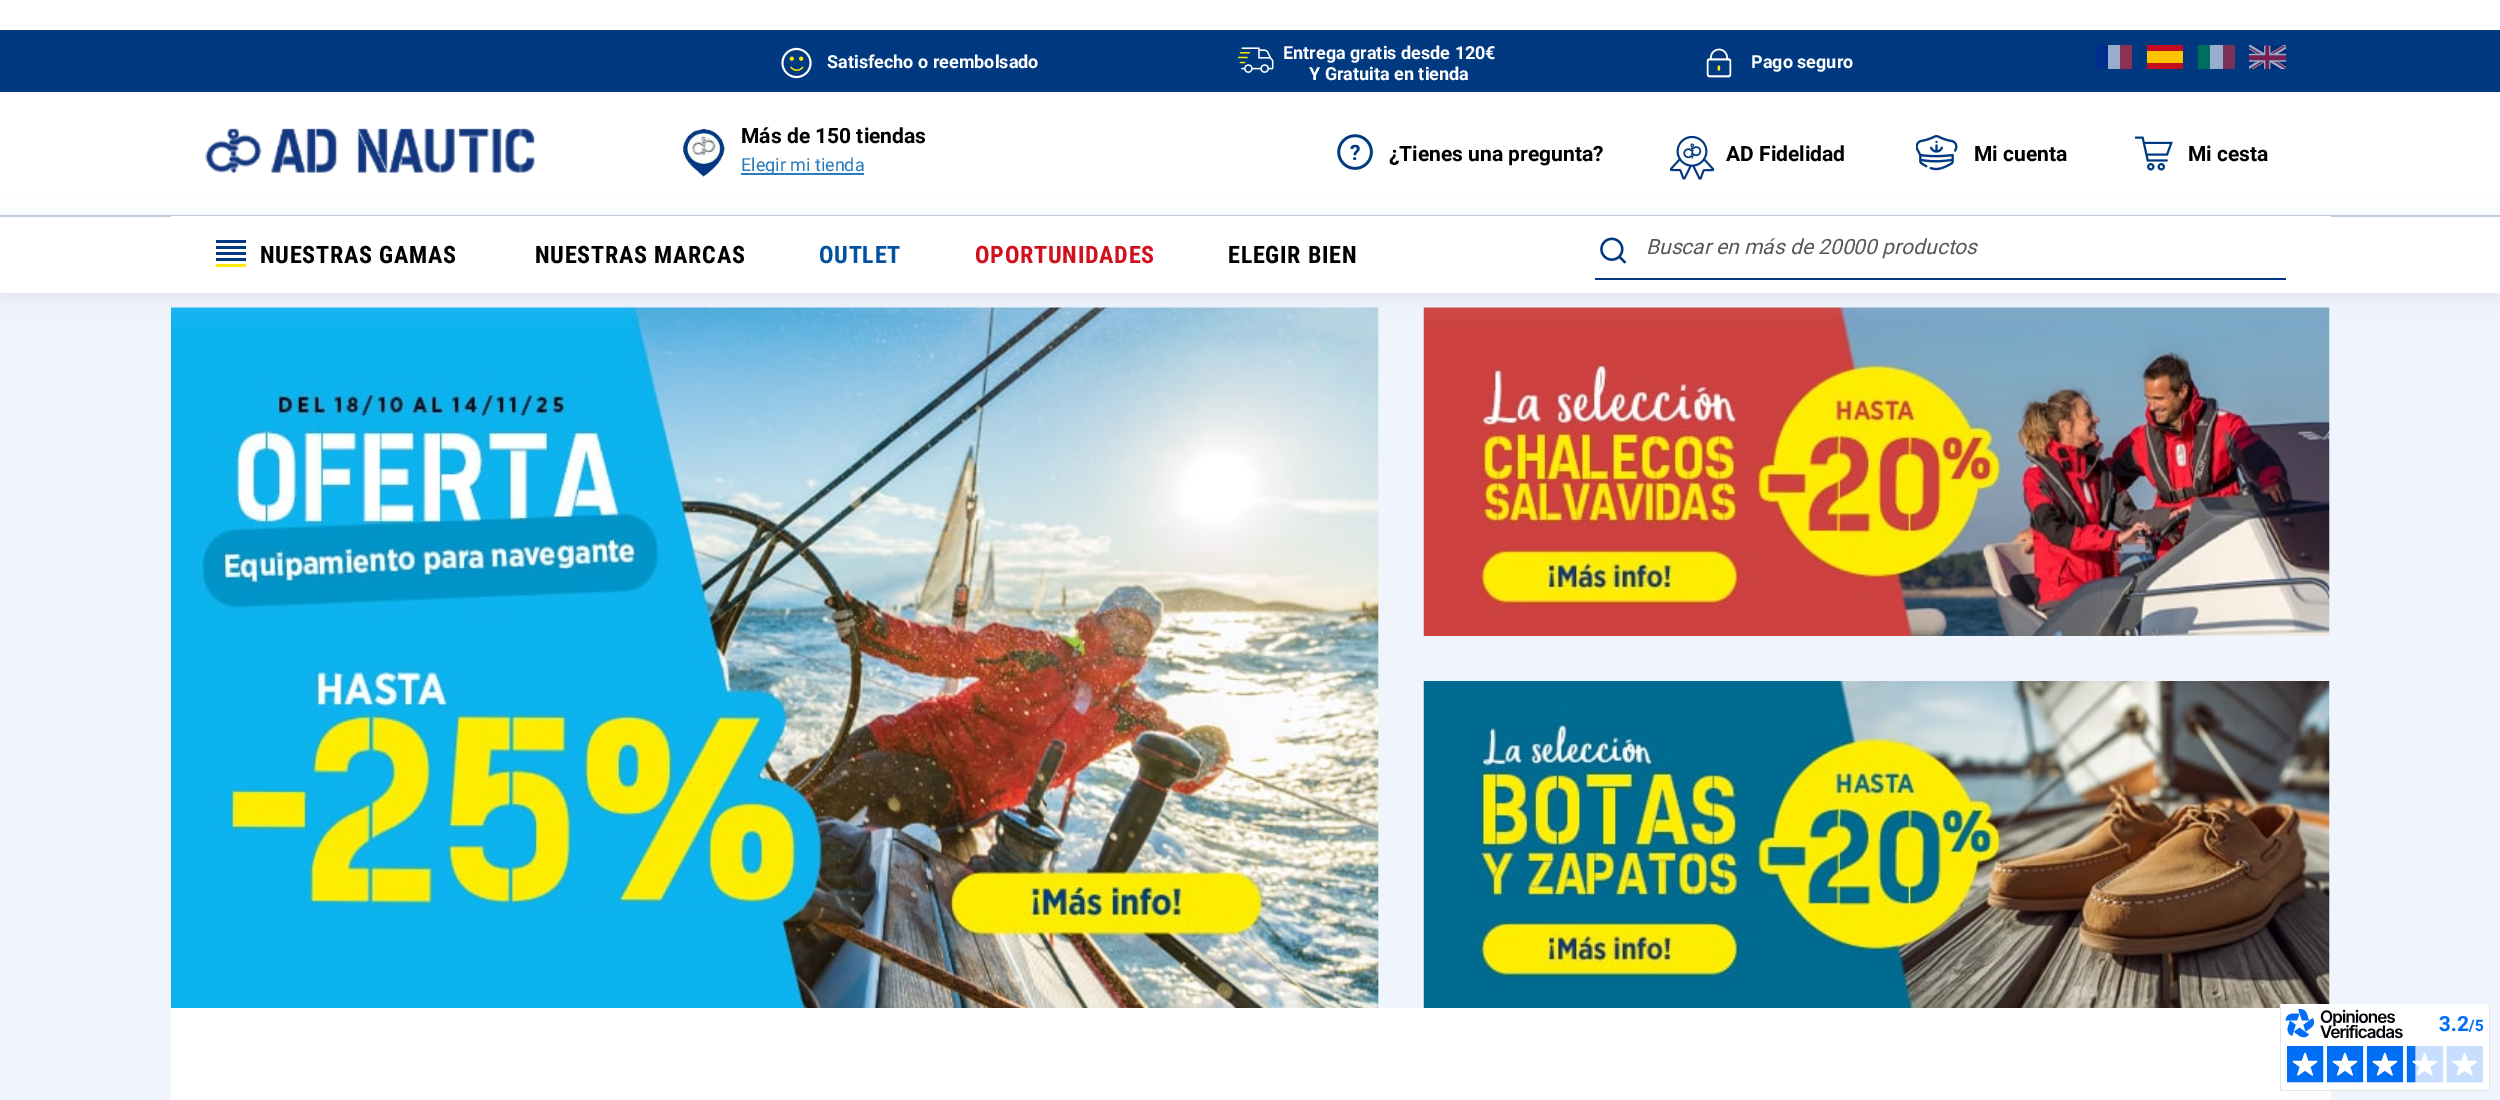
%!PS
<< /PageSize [2500 1100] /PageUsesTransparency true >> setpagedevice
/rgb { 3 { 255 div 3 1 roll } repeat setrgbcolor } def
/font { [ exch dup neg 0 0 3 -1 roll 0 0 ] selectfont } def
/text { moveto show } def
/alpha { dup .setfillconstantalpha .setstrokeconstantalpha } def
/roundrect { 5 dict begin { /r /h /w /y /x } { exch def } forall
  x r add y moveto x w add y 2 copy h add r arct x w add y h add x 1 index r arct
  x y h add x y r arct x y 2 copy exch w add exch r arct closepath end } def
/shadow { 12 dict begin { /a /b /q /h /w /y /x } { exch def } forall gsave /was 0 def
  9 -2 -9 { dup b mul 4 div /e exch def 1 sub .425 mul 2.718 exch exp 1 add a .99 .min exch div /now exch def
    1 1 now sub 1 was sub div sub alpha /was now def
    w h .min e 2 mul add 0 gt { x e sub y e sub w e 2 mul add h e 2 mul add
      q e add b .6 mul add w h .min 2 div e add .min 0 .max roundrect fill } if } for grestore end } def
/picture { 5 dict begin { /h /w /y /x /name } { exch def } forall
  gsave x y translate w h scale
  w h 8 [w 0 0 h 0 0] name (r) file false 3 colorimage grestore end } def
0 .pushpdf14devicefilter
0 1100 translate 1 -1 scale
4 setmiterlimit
255 255 255 rgb
0 0 2500 1100 rectfill
240 244 252 rgb
0 293 2500 807 rectfill
0 57 128 rgb
0 30 2500 62 rectfill
(img_01.rgb) 781 47 31 32 picture
(img_02.rgb) 1238 47 36 26 picture
(img_03.rgb) 1706 48 26 30 picture
140 48 86 rgb
2120 45 12 24 rectfill
150 174 203 rgb
2108 45 12 24 rectfill
0 44 140 rgb
2096 45 12 24 rectfill
198 11 30 rgb
2147 45 36 24 rectfill
255 196 0 rgb
2147 51 36 12 rectfill
0 110 94 rgb
2198 45 12 24 rectfill
150 174 203 rgb
2210 45 13 24 rectfill
122 49 85 rgb
2223 45 12 24 rectfill
(img_04.rgb) 2249 45 37 24 picture
(img_05.rgb) 205 128 330 45 picture
(img_06.rgb) 682 129 43 48 picture
42 123 186 rgb
741 173 123 2 rectfill
(img_07.rgb) 1337 134 36 36 picture
(img_08.rgb) 1670 135 45 45 picture
(img_09.rgb) 1916 135 42 36 picture
(img_10.rgb) 2135 136 38 35 picture
(img_12.rgb) 171 307 1208 701 picture
(img_13.rgb) 1423 307 907 329 picture
190 204 222 rgb
0 221 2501 78 0 12 0.34 shadow
255 255 255 rgb
0 217 2500 76 rectfill
190 204 222 rgb
0 215 2500 2 rectfill
255 255 255 rgb
171 216 2160 1 rectfill
0 57 128 rgb
216 240 30 3 rectfill
216 246 30 3 rectfill
216 252 30 3 rectfill
216 258 30 3 rectfill
255 236 0 rgb
216 264 30 3 rectfill
(img_11.rgb) 1600 237 26 27 picture
0 57 128 rgb
1595 278 691 2 rectfill
(img_14.rgb) 1423 681 907 327 picture
255 255 255 rgb
171 1008 2160 92 rectfill
(img_15.rgb) 2280 1004 210 87 picture
/Roboto-Bold 18 font
(Satisfecho o reembolsado) 827 68 text
(Entrega gratis desde 120€) 1283 59 text
(Y Gratuita en tienda) 1309 80 text
(Pago seguro) 1751 68 text
/Roboto-Bold 21 font
0 0 0 rgb
(Más de 150 tiendas) 741 143 text
/Roboto-Regular 18 font
42 123 186 rgb
(Elegir mi tienda) 741 171 text
/Roboto-Bold 21 font
0 0 0 rgb
(¿Tienes una pregunta?) 1389 161 text
(AD Fidelidad) 1726 161 text
(Mi cuenta) 1974 161 text
(Mi cesta) 2188 161 text
/RobotoCondensed-Bold 24 font
260 263 moveto 0.75 0 (NUESTRAS GAMAS) ashow
535 263 moveto 0.75 0 (NUESTRAS MARCAS) ashow
0 81 160 rgb
819 263 moveto 0.75 0 (OUTLET) ashow
208 16 28 rgb
975 263 moveto 0.75 0 (OPORTUNIDADES) ashow
0 0 0 rgb
1228 263 moveto 0.75 0 (ELEGIR BIEN) ashow
/Roboto-Italic 21 font
87 87 87 rgb
(Buscar en más de 20000 productos) 1646 254 text
.poppdf14devicefilter showpage
